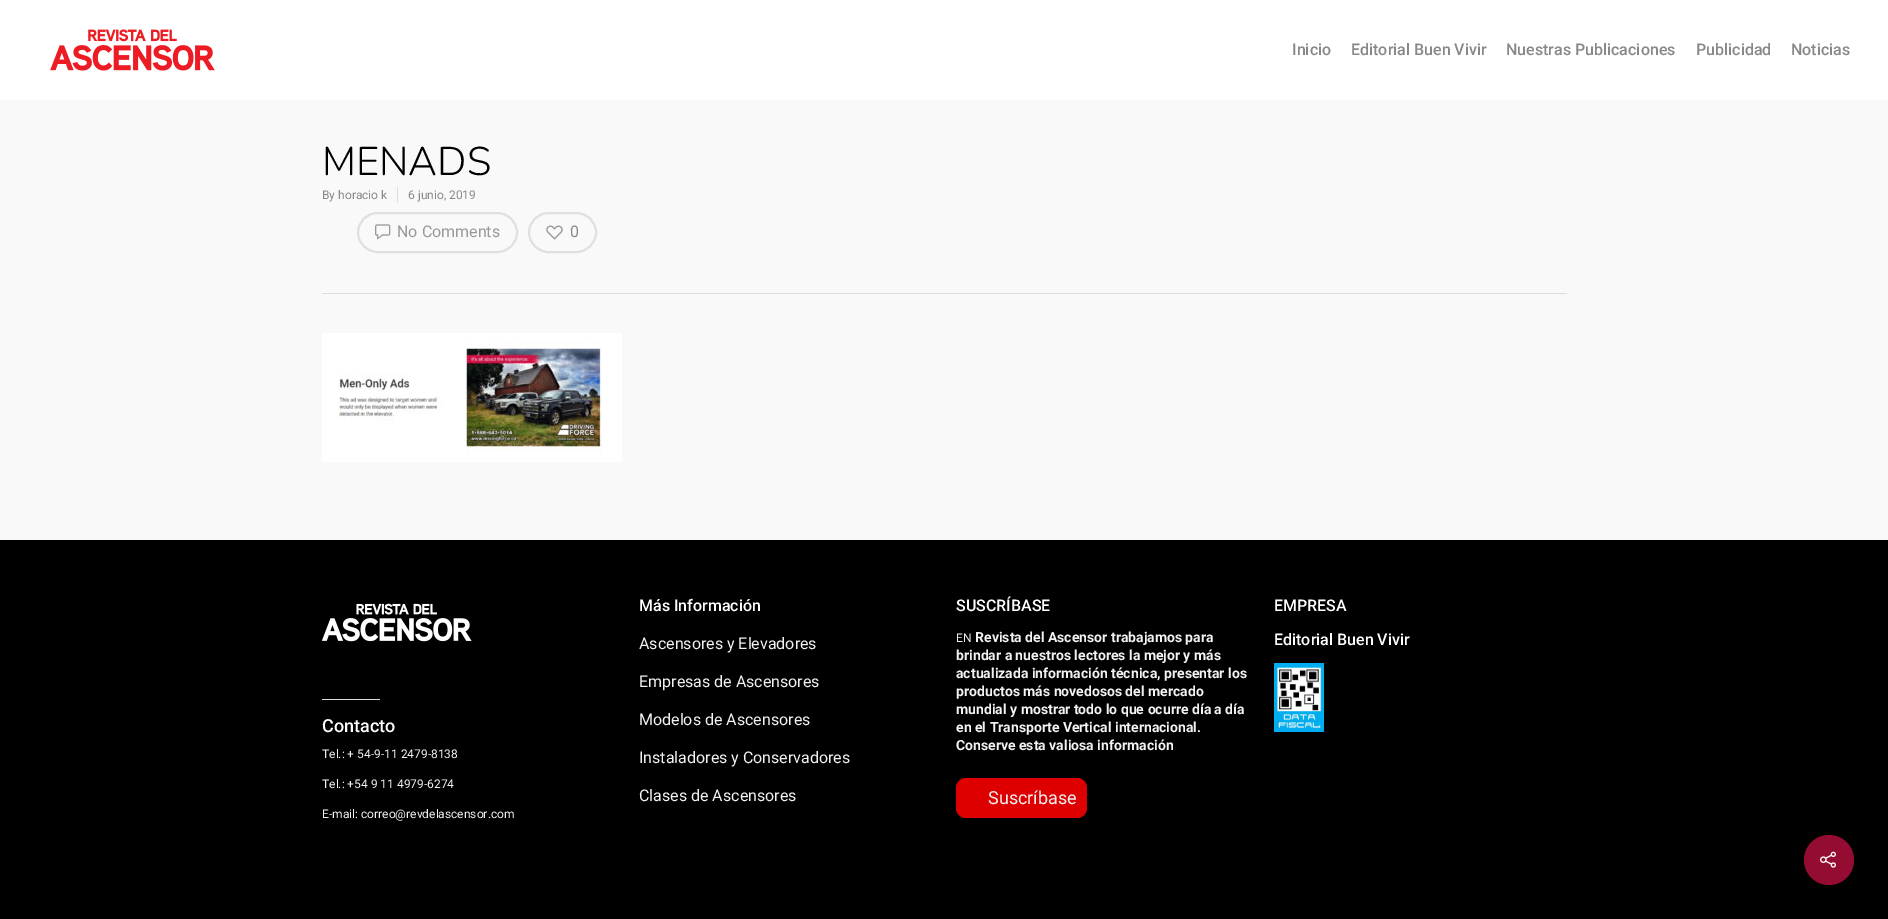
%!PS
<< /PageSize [1888 919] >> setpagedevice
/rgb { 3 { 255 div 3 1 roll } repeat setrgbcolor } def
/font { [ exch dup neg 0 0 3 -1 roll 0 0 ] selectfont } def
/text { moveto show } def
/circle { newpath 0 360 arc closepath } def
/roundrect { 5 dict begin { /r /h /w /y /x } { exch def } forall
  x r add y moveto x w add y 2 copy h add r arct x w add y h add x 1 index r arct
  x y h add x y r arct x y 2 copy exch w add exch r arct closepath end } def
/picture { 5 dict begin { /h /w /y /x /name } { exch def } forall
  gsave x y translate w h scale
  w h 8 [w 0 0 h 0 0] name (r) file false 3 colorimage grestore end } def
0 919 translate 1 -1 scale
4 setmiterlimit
249 249 249 rgb
0 0 1888 919 rectfill
255 255 255 rgb
0 0 1888 100 rectfill
(img_01.rgb) 50 29 165 42 picture
221 221 221 rgb
322 293 1245 1 rectfill
397 187 1 16 rectfill
224 224 224 rgb
2 setlinewidth
358 213 159 39 19.5 roundrect stroke
(img_02.rgb) 375 224 16 16 picture
529 213 67 39 19.5 roundrect stroke
(img_03.rgb) 546 225 17 15 picture
(img_04.rgb) 322 333 300 129 picture
0 0 0 rgb
0 540 1888 379 rectfill
222 0 0 rgb
956 778 131 40 10 roundrect fill
(img_05.rgb) 1274 663 50 69 picture
(img_06.rgb) 322 603 150 39 picture
221 221 221 rgb
322 699 58 1 rectfill
149 12 51 rgb
1829 860 25 circle fill
(img_07.rgb) 1820 851 16 17 picture
/Roboto-Medium 16 font
136 136 136 rgb
(Inicio) 1292 55 text
(Editorial Buen Vivir) 1351 55 text
(Nuestras Publicaciones) 1506 55 text
(Publicidad) 1696 55 text
(Noticias) 1791 55 text
/Nunito-Light 40 font
0 0 0 rgb
(MENADS) 322 175 text
/Roboto-Regular 12 font
136 136 136 rgb
(By horacio k) 322 199 text
(6 junio, 2019) 408 199 text
/Roboto-Regular 16 font
153 153 153 rgb
(No Comments) 397 237 text
136 136 136 rgb
(0) 570 237 text
/Roboto-Medium 16 font
255 255 255 rgb
(Más Información) 639 611 text
/Roboto-Regular 16 font
242 242 242 rgb
(Ascensores y Elevadores) 639 649 text
(Empresas de Ascensores) 639 687 text
(Modelos de Ascensores) 639 725 text
(Instaladores y Conservadores) 639 763 text
(Clases de Ascensores) 639 801 text
/Roboto-Medium 16 font
255 255 255 rgb
(SUSCRÍBASE) 956 611 text
/Roboto-Regular 12 font
242 242 242 rgb
(EN) 956 642 text
/Roboto-Bold 14 font
(Revista del Ascensor trabajamos para) 975 642 text
(brindar a nuestros lectores la mejor y más) 956 660 text
(actualizada información técnica, presentar los) 956 678 text
(productos más novedosos del mercado) 956 696 text
(mundial y mostrar todo lo que ocurre día a día) 956 714 text
(en el Transporte Vertical internacional.) 956 732 text
(Conserve esta valiosa información) 956 750 text
/Roboto-Regular 18 font
(Suscríbase) 988 804 text
/Roboto-Medium 16 font
255 255 255 rgb
(EMPRESA) 1274 611 text
(Editorial Buen Vivir) 1274 645 text
/Roboto-Medium 18 font
(Contacto) 322 732 text
/Roboto-Regular 12 font
242 242 242 rgb
(Tel.: + 54-9-11 2479-8138) 322 758 text
(Tel.: +54 9 11 4979-6274) 322 788 text
(E-mail: correo@revdelascensor.com) 322 818 text
showpage
